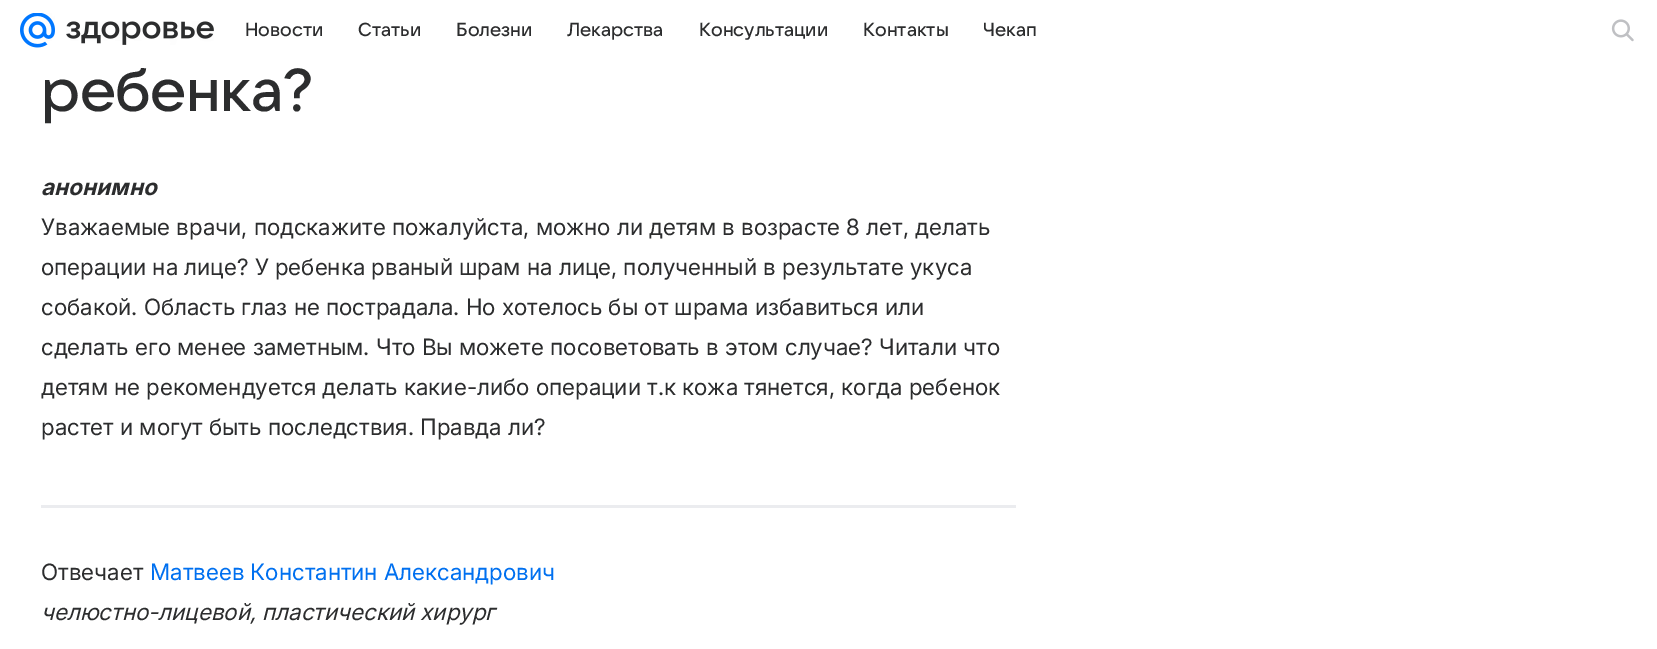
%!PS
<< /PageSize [1657 649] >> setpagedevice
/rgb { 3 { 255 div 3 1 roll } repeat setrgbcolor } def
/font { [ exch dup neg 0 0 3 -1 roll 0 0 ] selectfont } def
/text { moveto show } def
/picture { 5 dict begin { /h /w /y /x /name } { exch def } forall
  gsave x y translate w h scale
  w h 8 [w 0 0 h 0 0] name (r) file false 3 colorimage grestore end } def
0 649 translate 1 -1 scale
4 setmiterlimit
255 255 255 rgb
0 0 1657 649 rectfill
(img_01.rgb) 20 13 35 35 picture
(img_02.rgb) 66 21 148 24 picture
(img_03.rgb) 1611 19 23 23 picture
235 236 239 rgb
41 505 975 3 rectfill
/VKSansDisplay-Medium 18.75 font
44 45 46 rgb
(Новости) 245 36 text
(Статьи) 358 36 text
(Болезни) 456 36 text
(Лекарства) 567 36 text
(Консультации) 699 36 text
(Контакты) 863 36 text
(Чекап) 983 36 text
/VKSansDisplay-Medium 60 font
41 111 moveto -0.25 0 (ребенка?) ashow
/Inter-BoldItalic 22.5 font
41 195 moveto 0.07 0 (анонимно) ashow
/Inter-Regular 22.5 font
41 235 moveto 0.07 0 (Уважаемые врачи, подскажите пожалуйста, можно ли детям в возрасте 8 лет, делать) ashow
41 275 moveto 0.07 0 (операции на лице? У ребенка рваный шрам на лице, полученный в результате укуса) ashow
41 315 moveto 0.07 0 (собакой. Область глаз не пострадала. Но хотелось бы от шрама избавиться или) ashow
41 355 moveto 0.07 0 (сделать его менее заметным. Что Вы можете посоветовать в этом случае? Читали что) ashow
41 395 moveto 0.07 0 (детям не рекомендуется делать какие-либо операции т.к кожа тянется, когда ребенок) ashow
41 435 moveto 0.07 0 (растет и могут быть последствия. Правда ли?) ashow
41 580 moveto 0.07 0 (Отвечает) ashow
0 112 240 rgb
150 580 moveto 0.07 0 (Матвеев Константин Александрович) ashow
/Inter-Italic 22.5 font
44 45 46 rgb
41 620 moveto 0.07 0 (челюстно-лицевой, пластический хирург) ashow
showpage
